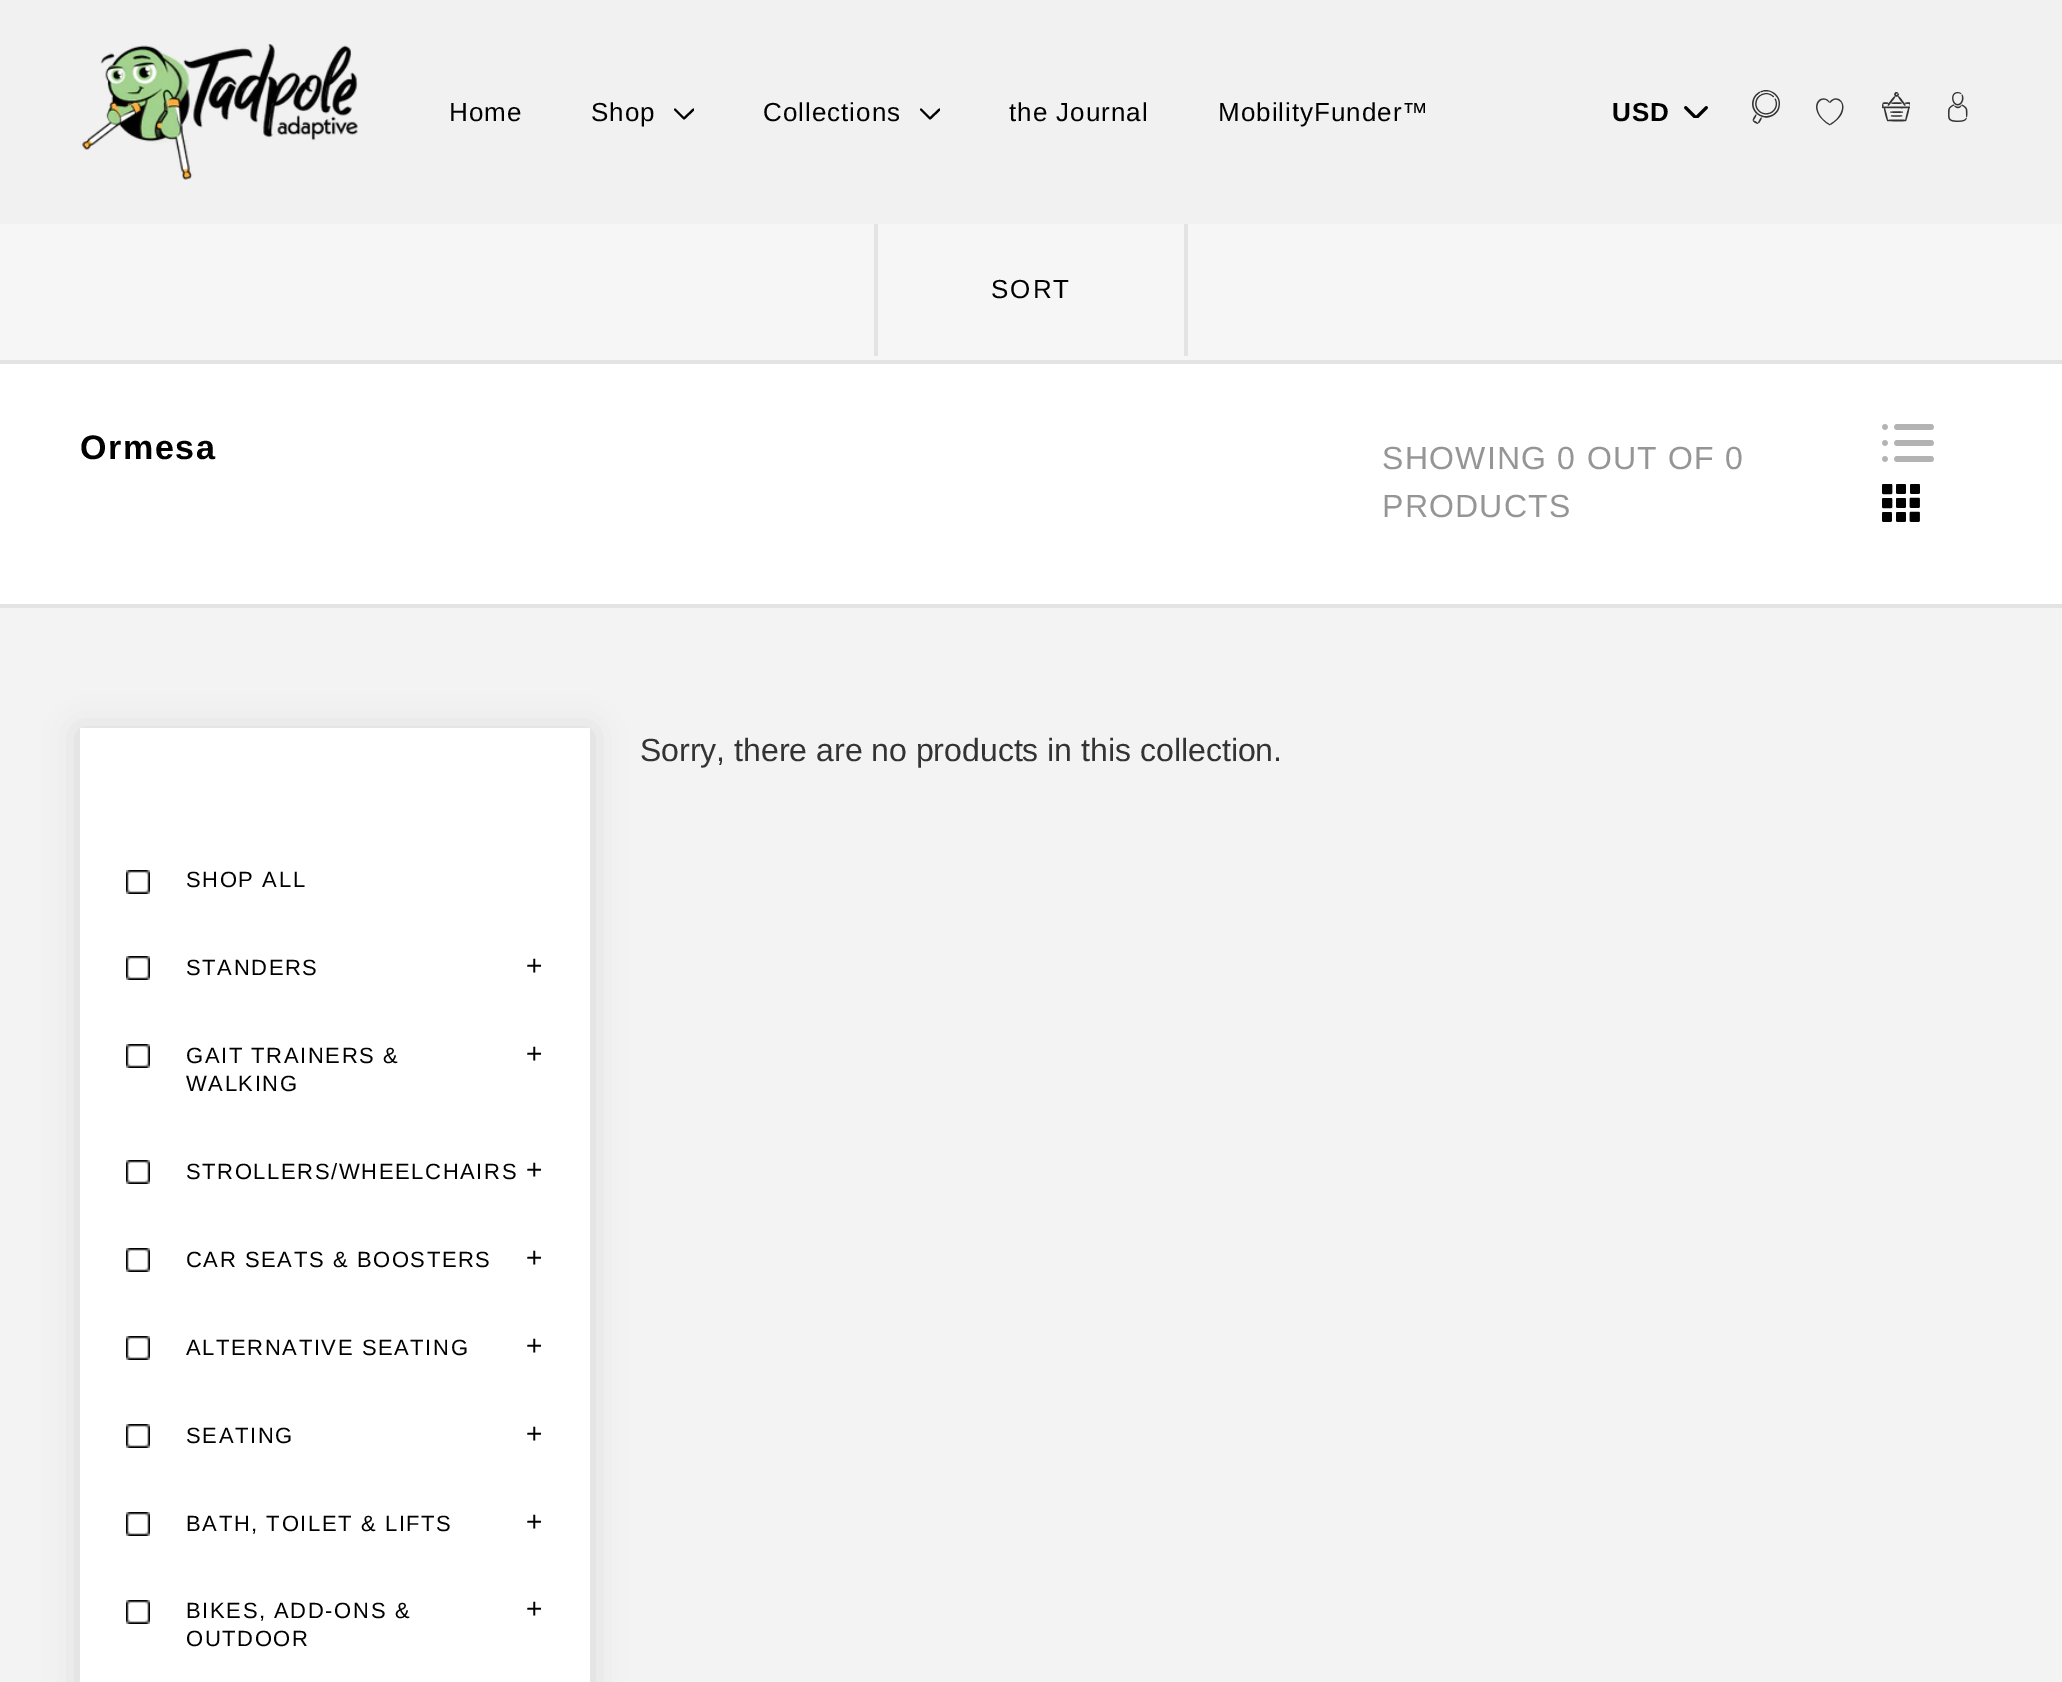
%!PS
<< /PageSize [2062 1682] /PageUsesTransparency true >> setpagedevice
/rgb { 3 { 255 div 3 1 roll } repeat setrgbcolor } def
/font { [ exch dup neg 0 0 3 -1 roll 0 0 ] selectfont } def
/text { moveto show } def
/alpha { dup .setfillconstantalpha .setstrokeconstantalpha } def
/roundrect { 5 dict begin { /r /h /w /y /x } { exch def } forall
  x r add y moveto x w add y 2 copy h add r arct x w add y h add x 1 index r arct
  x y h add x y r arct x y 2 copy exch w add exch r arct closepath end } def
/shadow { 12 dict begin { /a /b /q /h /w /y /x } { exch def } forall gsave /was 0 def
  9 -2 -9 { dup b mul 4 div /e exch def 1 sub .425 mul 2.718 exch exp 1 add a .99 .min exch div /now exch def
    1 1 now sub 1 was sub div sub alpha /was now def
    w h .min e 2 mul add 0 gt { x e sub y e sub w e 2 mul add h e 2 mul add
      q e add b .6 mul add w h .min 2 div e add .min 0 .max roundrect fill } if } for grestore end } def
/picture { 5 dict begin { /h /w /y /x /name } { exch def } forall
  gsave x y translate w h scale
  w h 8 [w 0 0 h 0 0] name (r) file false 3 colorimage grestore end } def
0 .pushpdf14devicefilter
0 1682 translate 1 -1 scale
4 setmiterlimit
255 255 255 rgb
0 0 2062 1682 rectfill
241 241 241 rgb
0 0 2062 224 rectfill
(img_01.rgb) 80 43 278 137 picture
gsave
674 104 20 20 rectclip
0 0 0 rgb
2.1 setlinewidth
1 setlinecap
1 setlinejoin
675 109.5 moveto 9 9 rlineto 9.5 -9 rlineto stroke
grestore
gsave
920 104 20 20 rectclip
0 0 0 rgb
2.1 setlinewidth
1 setlinecap
1 setlinejoin
921 109.5 moveto 9 9 rlineto 9.5 -9 rlineto stroke
grestore
(img_02.rgb) 1684 106 24 12 picture
(img_03.rgb) 1752 90 28 34 picture
(img_04.rgb) 1816 98 28 28 picture
(img_05.rgb) 1882 92 28 30 picture
(img_06.rgb) 1948 92 20 30 picture
246 246 246 rgb
0 224 2062 136 rectfill
227 227 227 rgb
0 360 2062 4 rectfill
1184 224 4 132 rectfill
874 224 4 132 rectfill
0 604 2062 4 rectfill
(img_07.rgb) 1882 424 52 38 picture
(img_08.rgb) 1882 484 38 38 picture
243 243 243 rgb
0 608 2062 1074 rectfill
0 0 0 rgb
78 730 514 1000 0 16 0.11 shadow
255 255 255 rgb
80 728 510 954 rectfill
(img_09.rgb) 126 870 24 24 picture
(img_09.rgb) 126 956 24 24 picture
(img_09.rgb) 126 1044 24 24 picture
(img_09.rgb) 126 1160 24 24 picture
(img_09.rgb) 126 1248 24 24 picture
(img_09.rgb) 126 1336 24 24 picture
(img_09.rgb) 126 1424 24 24 picture
(img_09.rgb) 126 1512 24 24 picture
(img_09.rgb) 126 1600 24 24 picture
/LiberationSans-Regular 26 font
0 0 0 rgb
449 121 moveto 1 0 (Home) ashow
591 121 moveto 1 0 (Shop) ashow
763 121 moveto 1 0 (Collections) ashow
1009 121 moveto 1 0 (the Journal) ashow
1218 121 moveto 1 0 (MobilityFunder™) ashow
/LiberationSans-Bold 26 font
1612 121 moveto 1 0 (USD) ashow
/LiberationSans-Regular 26 font
991 298 moveto 2 0 (SORT) ashow
/LiberationSans-Bold 34 font
80 459 moveto 1.6 0 (Ormesa) ashow
/LiberationSans-Regular 32 font
149 149 149 rgb
1382 469 moveto 1.25 0 (SHOWING 0 OUT OF 0) ashow
1382 517 moveto 1.25 0 (PRODUCTS) ashow
51 51 51 rgb
(Sorry, there are no products in this collection.) 640 761 text
/LiberationSans-Regular 22 font
0 0 0 rgb
186 887 moveto 1.6 0 (SHOP ALL) ashow
186 975 moveto 1.6 0 (STANDERS) ashow
/LiberationSans-Regular 28 font
526 975 moveto 1.6 0 (+) ashow
/LiberationSans-Regular 22 font
186 1063 moveto 1.6 0 (GAIT TRAINERS &) ashow
/LiberationSans-Regular 28 font
526 1063 moveto 1.6 0 (+) ashow
/LiberationSans-Regular 22 font
186 1091 moveto 1.6 0 (WALKING) ashow
186 1179 moveto 1.6 0 (STROLLERS/WHEELCHAIRS) ashow
/LiberationSans-Regular 28 font
526 1179 moveto 1.6 0 (+) ashow
/LiberationSans-Regular 22 font
186 1267 moveto 1.6 0 (CAR SEATS & BOOSTERS) ashow
/LiberationSans-Regular 28 font
526 1267 moveto 1.6 0 (+) ashow
/LiberationSans-Regular 22 font
186 1355 moveto 1.6 0 (ALTERNATIVE SEATING) ashow
/LiberationSans-Regular 28 font
526 1355 moveto 1.6 0 (+) ashow
/LiberationSans-Regular 22 font
186 1443 moveto 1.6 0 (SEATING) ashow
/LiberationSans-Regular 28 font
526 1443 moveto 1.6 0 (+) ashow
/LiberationSans-Regular 22 font
186 1531 moveto 1.6 0 (BATH, TOILET & LIFTS) ashow
/LiberationSans-Regular 28 font
526 1531 moveto 1.6 0 (+) ashow
/LiberationSans-Regular 22 font
186 1618 moveto 1.6 0 (BIKES, ADD-ONS &) ashow
/LiberationSans-Regular 28 font
526 1618 moveto 1.6 0 (+) ashow
/LiberationSans-Regular 22 font
186 1646 moveto 1.6 0 (OUTDOOR) ashow
.poppdf14devicefilter showpage
